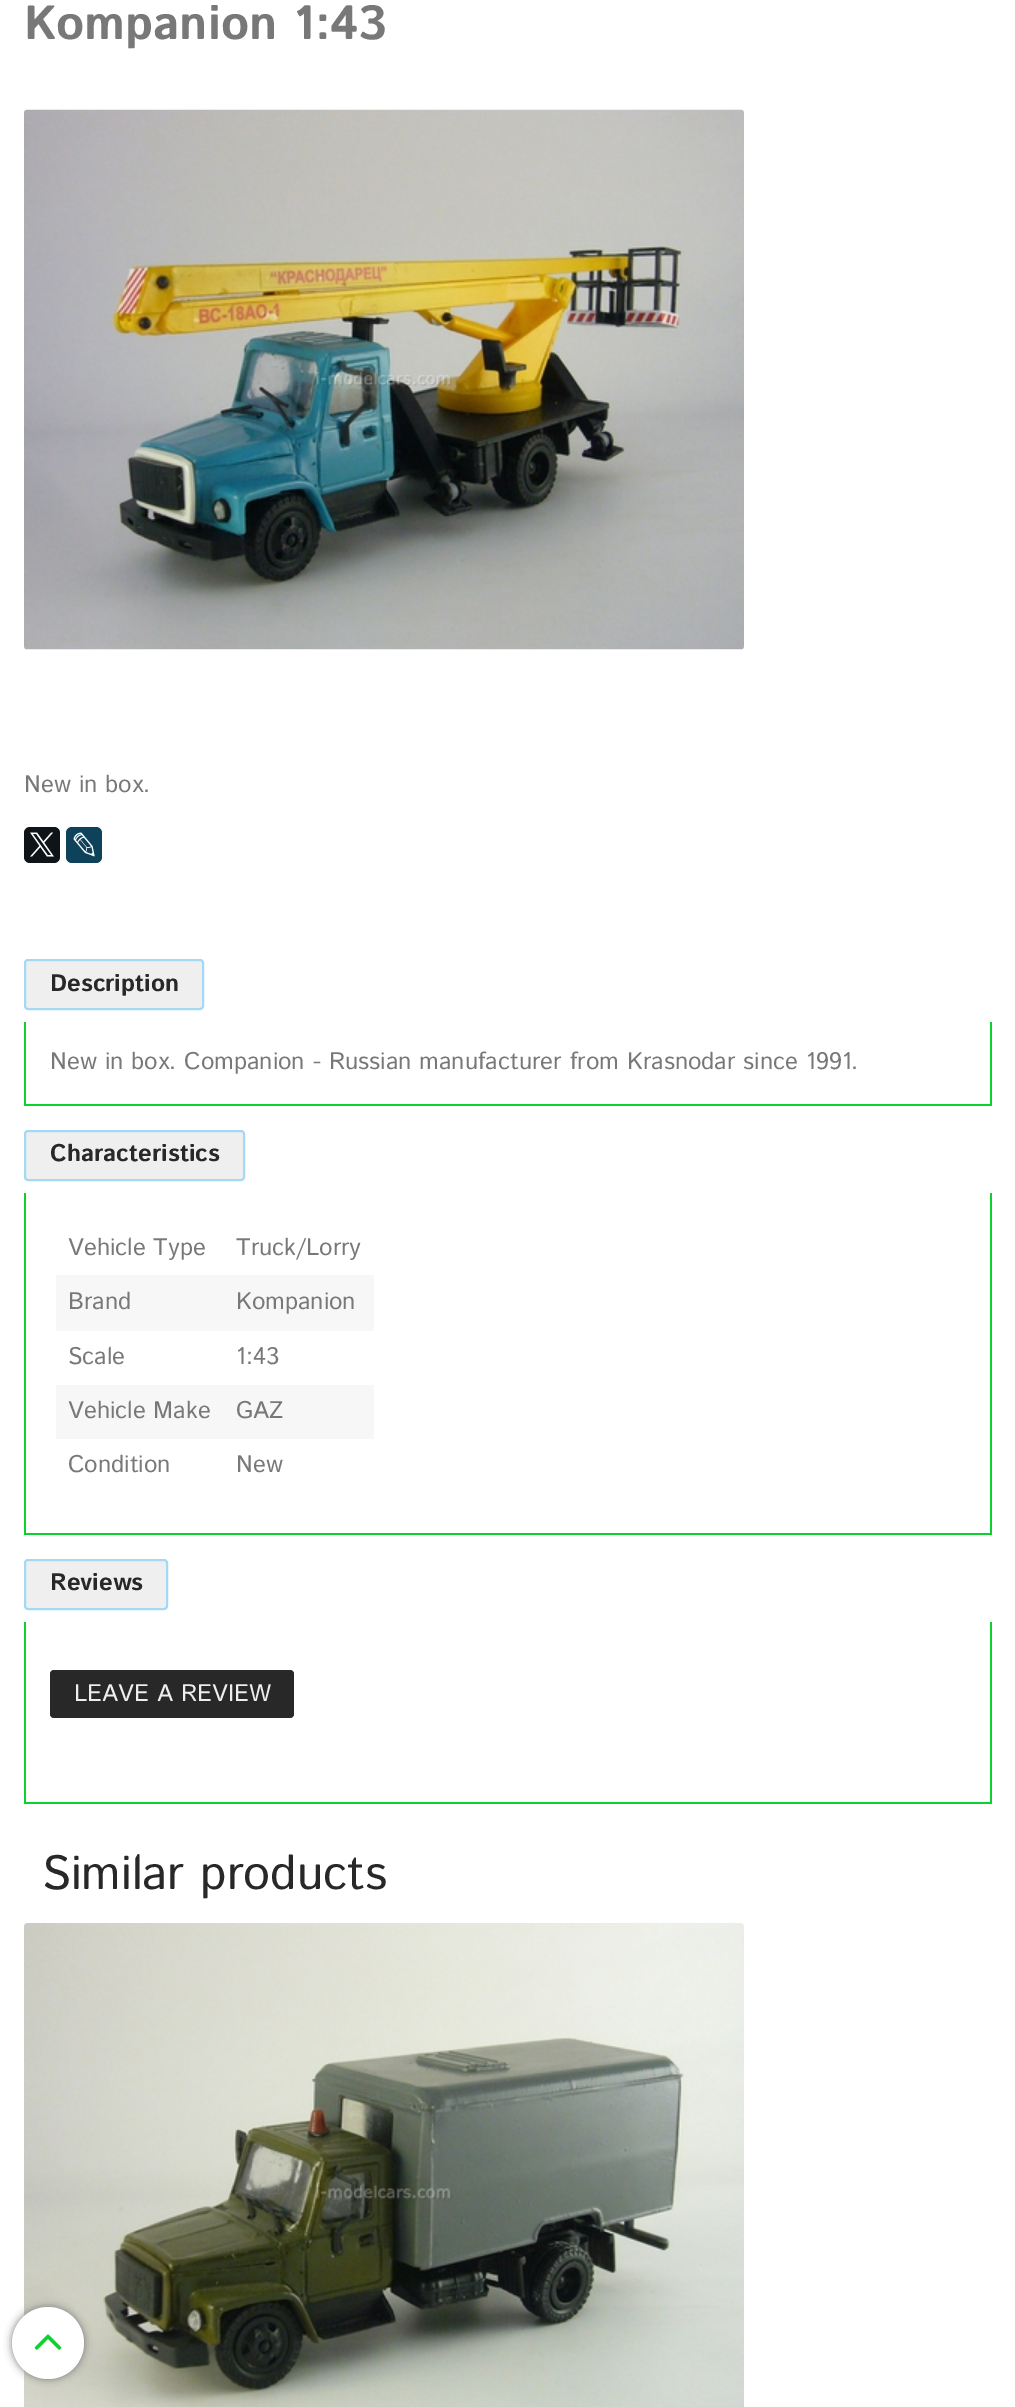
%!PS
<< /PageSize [1015 2407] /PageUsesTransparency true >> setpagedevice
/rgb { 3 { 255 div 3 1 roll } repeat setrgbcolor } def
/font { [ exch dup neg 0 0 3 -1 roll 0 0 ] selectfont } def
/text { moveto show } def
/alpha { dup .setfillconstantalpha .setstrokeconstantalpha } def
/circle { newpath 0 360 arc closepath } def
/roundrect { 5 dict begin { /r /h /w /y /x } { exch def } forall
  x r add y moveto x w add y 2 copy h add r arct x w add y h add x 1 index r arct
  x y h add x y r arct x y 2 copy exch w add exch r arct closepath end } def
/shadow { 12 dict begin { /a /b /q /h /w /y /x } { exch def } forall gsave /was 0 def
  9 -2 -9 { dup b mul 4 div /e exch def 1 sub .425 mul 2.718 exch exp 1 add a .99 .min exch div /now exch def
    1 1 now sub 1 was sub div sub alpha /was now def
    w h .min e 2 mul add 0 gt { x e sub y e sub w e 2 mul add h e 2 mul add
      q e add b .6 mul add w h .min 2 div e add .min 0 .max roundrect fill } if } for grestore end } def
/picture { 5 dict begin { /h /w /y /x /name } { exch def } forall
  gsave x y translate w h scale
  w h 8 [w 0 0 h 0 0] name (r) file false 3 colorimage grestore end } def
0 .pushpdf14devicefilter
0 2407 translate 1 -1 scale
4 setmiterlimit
255 255 255 rgb
0 0 1015 2407 rectfill
(img_01.rgb) 24 109 720 541 picture
15 20 25 rgb
24 827 36 36 6 roundrect fill
(img_02.rgb) 30 832 24 25 picture
13 66 90 rgb
66 827 36 36 6 roundrect fill
(img_03.rgb) 73 832 22 25 picture
239 239 239 rgb
25 960 178 49 3 roundrect gsave fill grestore
164 216 245 rgb
2 setlinewidth
stroke
13 209 45 rgb
990 1022 2 84 rectfill
24 1104 968 2 rectfill
24 1022 2 84 rectfill
239 239 239 rgb
25 1131 219 49 3 roundrect gsave fill grestore
164 216 245 rgb
stroke
13 209 45 rgb
990 1193 2 342 rectfill
24 1533 968 2 rectfill
24 1193 2 342 rectfill
247 247 247 rgb
56 1275 318 56 rectfill
56 1385 318 54 rectfill
239 239 239 rgb
25 1560 142 49 3 roundrect gsave fill grestore
164 216 245 rgb
stroke
13 209 45 rgb
990 1622 2 181 rectfill
24 1802 968 2 rectfill
24 1622 2 181 rectfill
40 40 40 rgb
50 1670 244 48 4 roundrect fill
(img_04.rgb) 24 1923 720 484 picture
119 119 119 rgb
12 2307 72 72 36 4 1 shadow
255 255 255 rgb
48 2343 36 circle fill
(img_05.rgb) 34 2334 28 16 picture
/IstokWeb-Bold 48 font
120 120 120 rgb
(Kompanion 1:43) 24 39 text
/IstokWeb-Regular 24 font
(New in box.) 24 792 text
/IstokWeb-Bold 24 font
40 40 40 rgb
(Description) 50 991 text
/IstokWeb-Regular 24 font
120 120 120 rgb
(New in box. Companion - Russian manufacturer from Krasnodar since 1991.) 50 1069 text
/IstokWeb-Bold 24 font
40 40 40 rgb
(Characteristics) 50 1161 text
/IstokWeb-Regular 24 font
120 120 120 rgb
(Vehicle Type) 68 1255 text
(Truck/Lorry) 236 1255 text
(Brand) 68 1309 text
(Kompanion) 236 1309 text
(Scale) 68 1364 text
(1:43) 236 1364 text
(Vehicle Make) 68 1418 text
(GAZ) 236 1418 text
(Condition) 68 1472 text
(New) 236 1472 text
/IstokWeb-Bold 24 font
40 40 40 rgb
(Reviews) 50 1590 text
/IstokWeb-Regular 24 font
238 238 238 rgb
(LEAVE A REVIEW) 74 1701 text
/IstokWeb-Regular 48 font
40 40 40 rgb
(Similar products) 42 1889 text
.poppdf14devicefilter showpage
